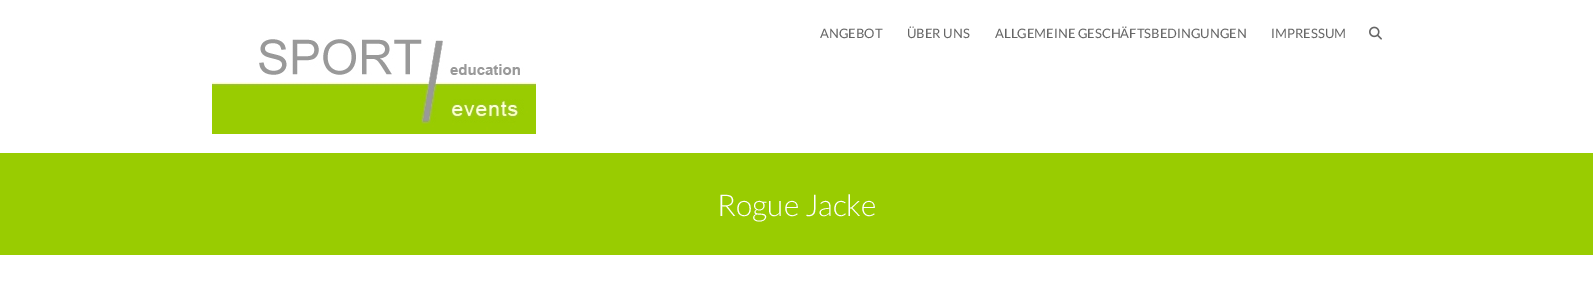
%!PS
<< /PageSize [1593 307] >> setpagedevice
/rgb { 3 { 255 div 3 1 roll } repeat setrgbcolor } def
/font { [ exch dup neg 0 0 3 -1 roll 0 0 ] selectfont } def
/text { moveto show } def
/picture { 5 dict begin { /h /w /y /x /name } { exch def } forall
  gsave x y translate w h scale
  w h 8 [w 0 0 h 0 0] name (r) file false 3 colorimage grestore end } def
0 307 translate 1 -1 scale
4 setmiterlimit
255 255 255 rgb
0 0 1593 307 rectfill
(img_01.rgb) 1369 26 13 14 picture
(img_02.rgb) 212 39 324 95 picture
153 204 1 rgb
0 153 1593 102 rectfill
/Lato-Regular 13 font
102 102 102 rgb
(ANGEBOT) 820 38 text
(ÜBER UNS) 907 38 text
(ALLGEMEINE GESCHÄFTSBEDINGUNGEN) 995 38 text
(IMPRESSUM) 1271 38 text
/Lato-Light 30 font
255 255 255 rgb
(Rogue Jacke) 717 216 text
showpage
